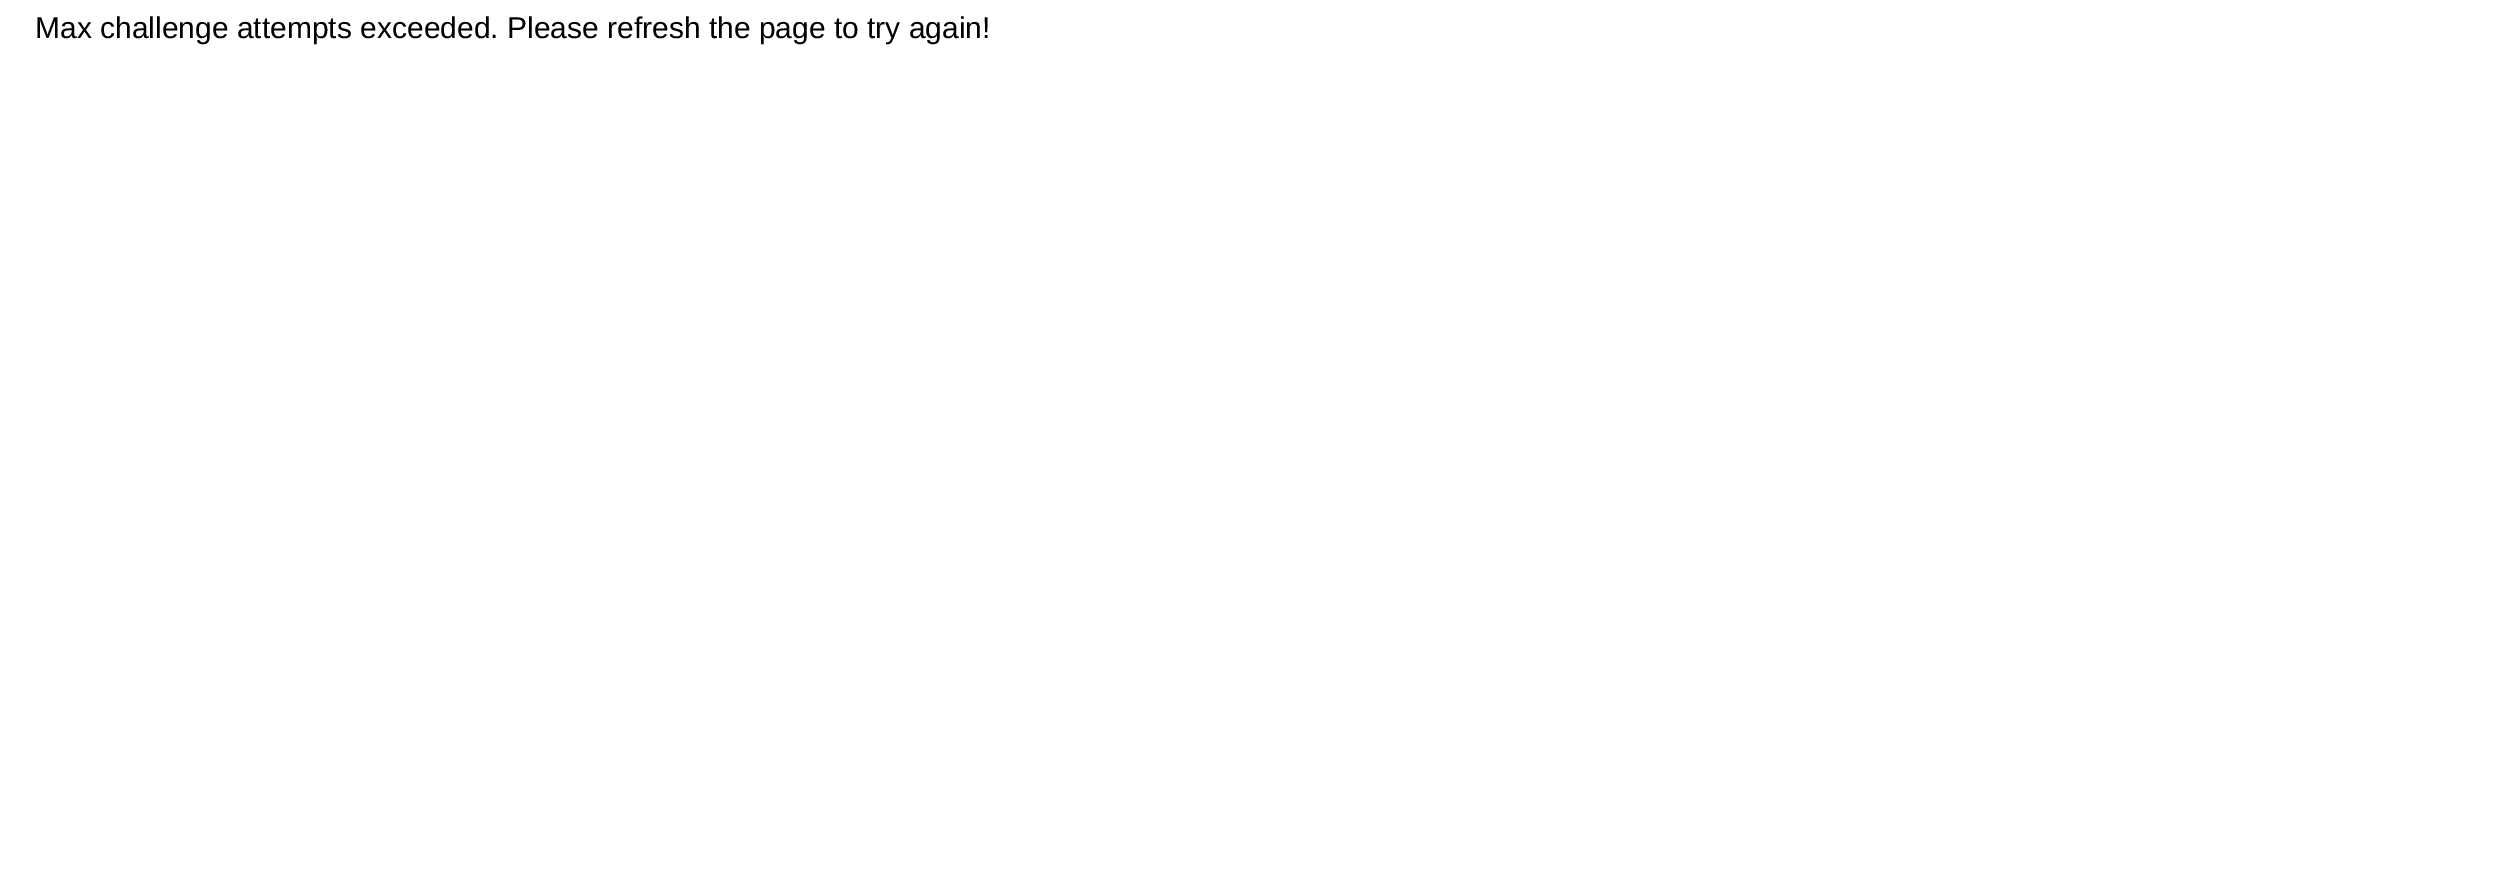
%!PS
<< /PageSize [2504 893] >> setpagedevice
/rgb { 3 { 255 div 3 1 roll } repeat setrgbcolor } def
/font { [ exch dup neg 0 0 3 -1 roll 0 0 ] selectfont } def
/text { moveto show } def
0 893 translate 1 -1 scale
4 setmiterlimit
255 255 255 rgb
0 0 2504 893 rectfill
/LiberationSans-Regular 30 font
0 0 0 rgb
(Max challenge attempts exceeded. Please refresh the page to try again!) 35 38 text
showpage
